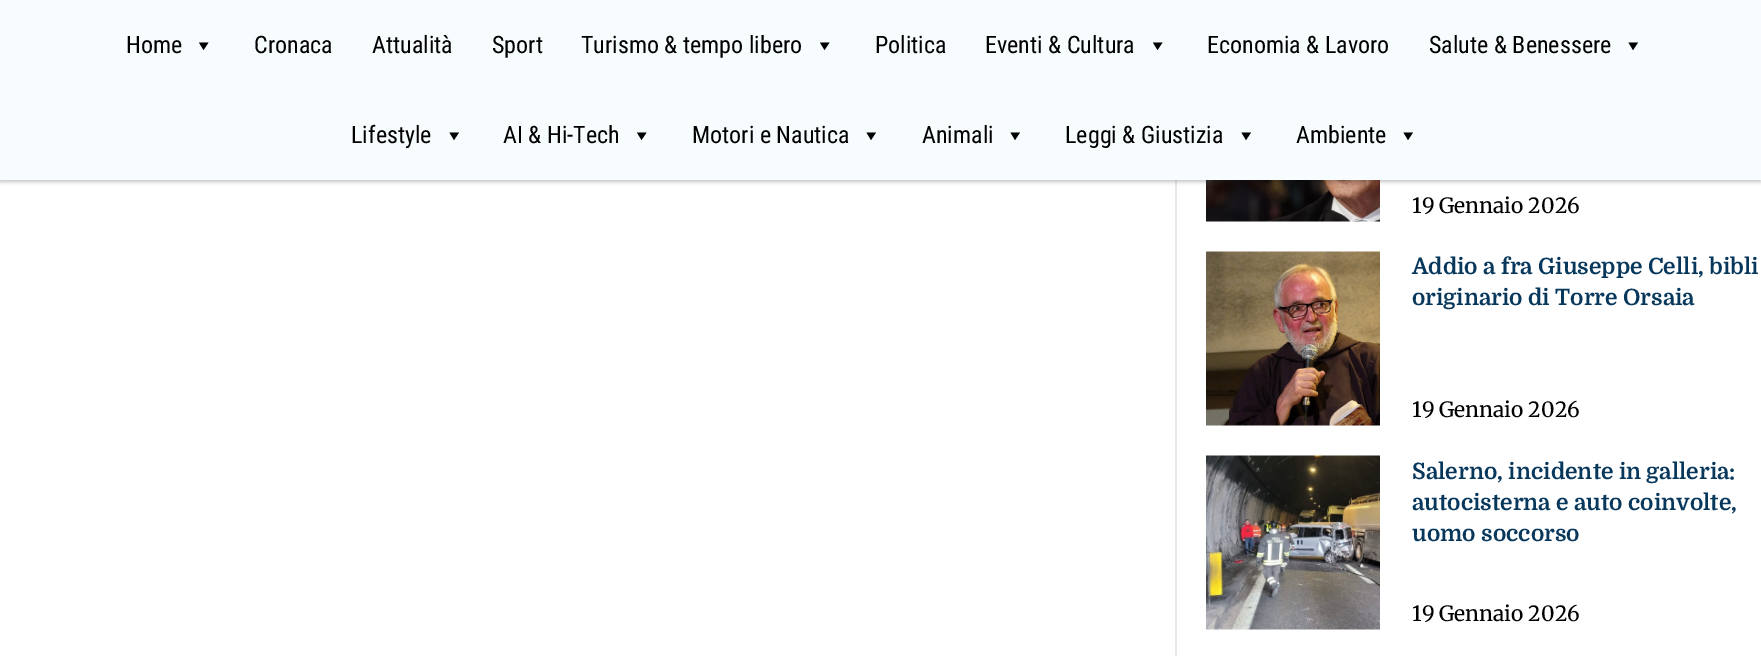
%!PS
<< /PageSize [1761 656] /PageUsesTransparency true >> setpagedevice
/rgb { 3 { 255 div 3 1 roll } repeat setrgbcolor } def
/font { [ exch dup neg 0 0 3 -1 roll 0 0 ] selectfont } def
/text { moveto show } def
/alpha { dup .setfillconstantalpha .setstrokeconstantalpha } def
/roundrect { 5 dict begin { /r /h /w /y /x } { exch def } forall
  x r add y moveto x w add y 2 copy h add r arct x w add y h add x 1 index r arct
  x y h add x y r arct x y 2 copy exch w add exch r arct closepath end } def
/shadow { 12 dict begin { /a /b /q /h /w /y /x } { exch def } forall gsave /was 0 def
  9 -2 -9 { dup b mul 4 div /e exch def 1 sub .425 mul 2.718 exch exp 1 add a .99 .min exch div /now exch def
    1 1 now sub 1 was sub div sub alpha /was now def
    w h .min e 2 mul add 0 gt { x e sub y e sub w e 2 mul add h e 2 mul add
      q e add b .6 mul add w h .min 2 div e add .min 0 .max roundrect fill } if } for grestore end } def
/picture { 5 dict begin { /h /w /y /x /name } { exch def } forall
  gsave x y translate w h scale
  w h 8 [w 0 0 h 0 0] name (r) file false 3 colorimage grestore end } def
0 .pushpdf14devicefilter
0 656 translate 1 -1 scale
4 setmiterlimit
255 255 255 rgb
0 0 1761 656 rectfill
232 232 232 rgb
1175 180 2 476 rectfill
(img_01.rgb) 1206 180 174 42 picture
0 0 0 rgb
0 2 1761 180 0 1.5 0.1 shadow
0 2 1761 180 0 2 0.12 shadow
247 252 254 rgb
0 0 1761 180 rectfill
0 0 0 rgb
208.5 42.5 moveto -5 7.5 rlineto -4.5 -7.5 rlineto closepath fill
829.5 42.5 moveto -5 7.5 rlineto -4.5 -7.5 rlineto closepath fill
1162.5 42.5 moveto -5 7.5 rlineto -4.5 -7.5 rlineto closepath fill
1638 42.5 moveto -5 7.5 rlineto -4.5 -7.5 rlineto closepath fill
459 132.5 moveto -5 7.5 rlineto -4.5 -7.5 rlineto closepath fill
646.5 132.5 moveto -5 7.5 rlineto -4.5 -7.5 rlineto closepath fill
876 132.5 moveto -5 7.5 rlineto -4.5 -7.5 rlineto closepath fill
1020 132.5 moveto -5 7.5 rlineto -4.5 -7.5 rlineto closepath fill
1251 132.5 moveto -5 7.5 rlineto -4.5 -7.5 rlineto closepath fill
1413 132.5 moveto -5 7.5 rlineto -4.5 -7.5 rlineto closepath fill
(img_02.rgb) 1206 251 174 175 picture
(img_03.rgb) 1206 455 174 175 picture
/RobotoCondensed-Regular 24 font
(Home) 126 53 text
(Cronaca) 254 53 text
(Attualità) 372 53 text
(Sport) 492 53 text
(Turismo & tempo libero) 581 53 text
(Politica) 875 53 text
(Eventi & Cultura) 985 53 text
(Economia & Lavoro) 1207 53 text
(Salute & Benessere) 1429 53 text
(Lifestyle) 351 143 text
(AI & Hi-Tech) 503 143 text
(Motori e Nautica) 692 143 text
(Animali) 922 143 text
(Leggi & Giustizia) 1065 143 text
(Ambiente) 1296 143 text
/Merriweather-Regular 21 font
(19 Gennaio 2026) 1412 213 text
/Domine-Bold 22.5 font
7 56 92 rgb
(Addio a fra Giuseppe Celli, bibli) 1412 274 text
(originario di Torre Orsaia) 1412 305 text
/Merriweather-Regular 21 font
0 0 0 rgb
(19 Gennaio 2026) 1412 417 text
/Domine-Bold 22.5 font
7 56 92 rgb
(Salerno, incidente in galleria:) 1412 479 text
(autocisterna e auto coinvolte,) 1412 510 text
(uomo soccorso) 1412 541 text
/Merriweather-Regular 21 font
0 0 0 rgb
(19 Gennaio 2026) 1412 621 text
.poppdf14devicefilter showpage
